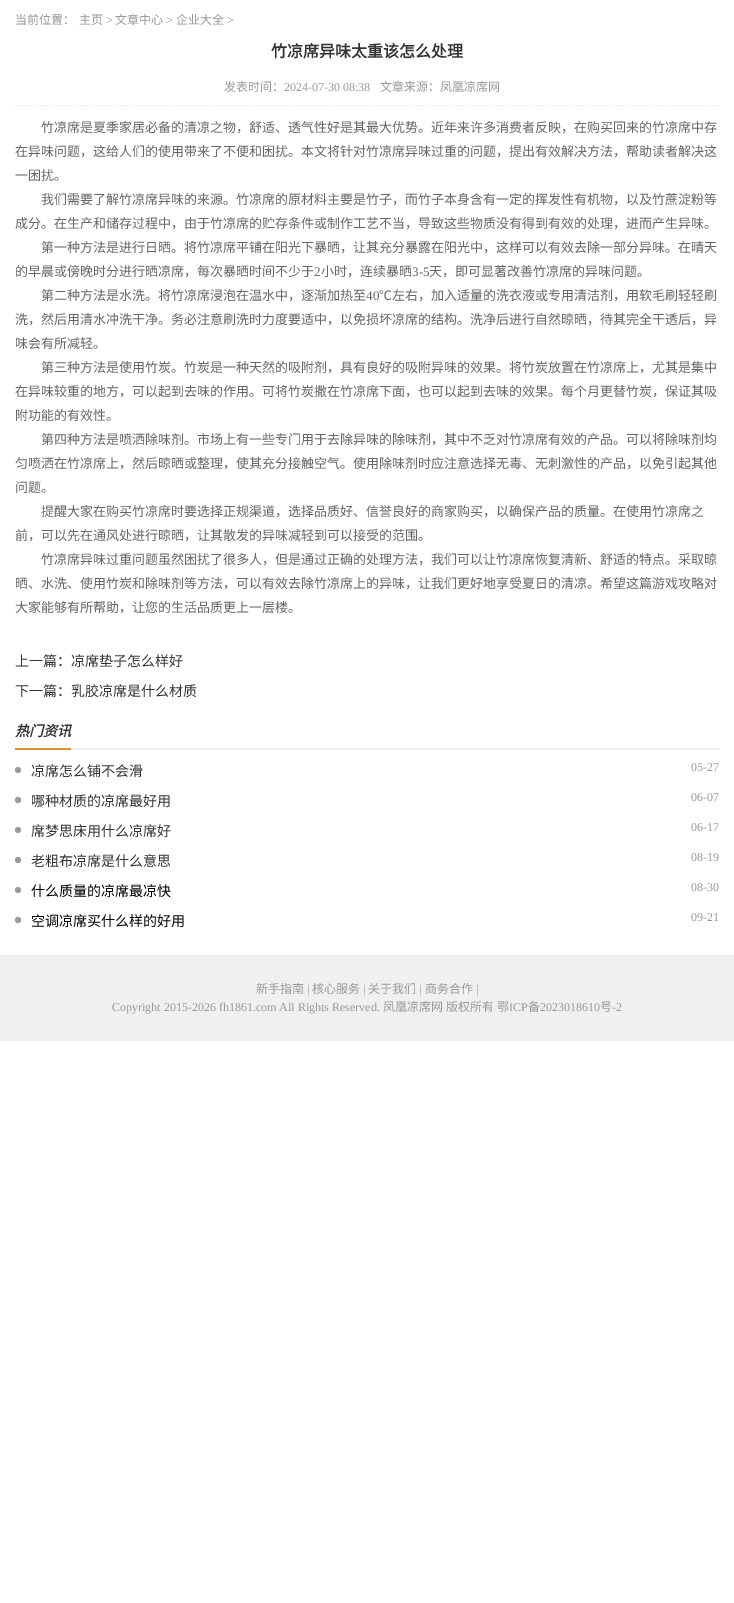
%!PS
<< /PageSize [734 1603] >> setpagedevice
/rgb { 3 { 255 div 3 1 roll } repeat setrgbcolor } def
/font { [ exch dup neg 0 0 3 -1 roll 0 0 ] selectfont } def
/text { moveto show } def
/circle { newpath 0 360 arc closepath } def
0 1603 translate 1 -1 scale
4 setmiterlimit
255 255 255 rgb
0 0 734 1603 rectfill
238 238 238 rgb
[3 2.01] 0 setdash
15 105.5 moveto 704 0 rlineto stroke
214 146 48 rgb
15 748 56 2 rectfill
238 238 238 rgb
71 748 648 2 rectfill
153 153 153 rgb
18 770 3 circle fill
18 800 3 circle fill
18 830 3 circle fill
18 860 3 circle fill
18 890 3 circle fill
18 920 3 circle fill
240 240 240 rgb
0 955 734 86 rectfill
/NotoSansCJKSC-Regular 12 font
153 153 153 rgb
(当前位置：) 15 24 text
(主页) 79 24 text
/LiberationSerif-Regular 12 font
(>) 106 24 text
/NotoSansCJKSC-Regular 12 font
(文章中心) 115 24 text
/LiberationSerif-Regular 12 font
(>) 166 24 text
/NotoSansCJKSC-Regular 12 font
(企业大全) 176 24 text
/LiberationSerif-Regular 12 font
(>) 227 24 text
/NotoSansCJKSC-Bold 16 font
51 51 51 rgb
(竹凉席异味太重该怎么处理) 271 57 text
/NotoSansCJKSC-Regular 12 font
153 153 153 rgb
(发表时间：) 224 91 text
/LiberationSerif-Regular 12 font
(2024-07-30 08:38) 284 91 text
/NotoSansCJKSC-Regular 12 font
(文章来源：凤凰凉席网) 380 91 text
/NotoSansCJKSC-Regular 13 font
102 102 102 rgb
(竹凉席是夏季家居必备的清凉之物，舒适、透气性好是其最大优势。近年来许多消费者反映，在购买回来的竹凉席中存) 41 132 text
(在异味问题，这给人们的使用带来了不便和困扰。本文将针对竹凉席异味过重的问题，提出有效解决方法，帮助读者解决这) 15 156 text
(一困扰。) 15 180 text
(我们需要了解竹凉席异味的来源。竹凉席的原材料主要是竹子，而竹子本身含有一定的挥发性有机物，以及竹蔗淀粉等) 41 204 text
(成分。在生产和储存过程中，由于竹凉席的贮存条件或制作工艺不当，导致这些物质没有得到有效的处理，进而产生异味。) 15 228 text
(第一种方法是进行日晒。将竹凉席平铺在阳光下暴晒，让其充分暴露在阳光中，这样可以有效去除一部分异味。在晴天) 41 252 text
(的早晨或傍晚时分进行晒凉席，每次暴晒时间不少于) 15 276 text
/LiberationSerif-Regular 13 font
(2) 314 276 text
/NotoSansCJKSC-Regular 13 font
(小时，连续暴晒) 321 276 text
/LiberationSerif-Regular 13 font
(3-5) 412 276 text
/NotoSansCJKSC-Regular 13 font
(天，即可显著改善竹凉席的异味问题。) 429 276 text
(第二种方法是水洗。将竹凉席浸泡在温水中，逐渐加热至) 41 300 text
/LiberationSerif-Regular 13 font
(40) 366 300 text
/NotoSansCJKSC-Regular 13 font
(℃左右，加入适量的洗衣液或专用清洁剂，用软毛刷轻轻刷) 379 300 text
(洗，然后用清水冲洗干净。务必注意刷洗时力度要适中，以免损坏凉席的结构。洗净后进行自然晾晒，待其完全干透后，异) 15 324 text
(味会有所减轻。) 15 348 text
(第三种方法是使用竹炭。竹炭是一种天然的吸附剂，具有良好的吸附异味的效果。将竹炭放置在竹凉席上，尤其是集中) 41 372 text
(在异味较重的地方，可以起到去味的作用。可将竹炭撒在竹凉席下面，也可以起到去味的效果。每个月更替竹炭，保证其吸) 15 396 text
(附功能的有效性。) 15 420 text
(第四种方法是喷洒除味剂。市场上有一些专门用于去除异味的除味剂，其中不乏对竹凉席有效的产品。可以将除味剂均) 41 444 text
(匀喷洒在竹凉席上，然后晾晒或整理，使其充分接触空气。使用除味剂时应注意选择无毒、无刺激性的产品，以免引起其他) 15 468 text
(问题。) 15 492 text
(提醒大家在购买竹凉席时要选择正规渠道，选择品质好、信誉良好的商家购买，以确保产品的质量。在使用竹凉席之) 41 516 text
(前，可以先在通风处进行晾晒，让其散发的异味减轻到可以接受的范围。) 15 540 text
(竹凉席异味过重问题虽然困扰了很多人，但是通过正确的处理方法，我们可以让竹凉席恢复清新、舒适的特点。采取晾) 41 564 text
(晒、水洗、使用竹炭和除味剂等方法，可以有效去除竹凉席上的异味，让我们更好地享受夏日的清凉。希望这篇游戏攻略对) 15 588 text
(大家能够有所帮助，让您的生活品质更上一层楼。) 15 612 text
/NotoSansCJKSC-Regular 14 font
51 51 51 rgb
(上一篇：凉席垫子怎么样好) 15 666 text
(下一篇：乳胶凉席是什么材质) 15 696 text
/NotoSansCJKSC-BoldItalic 14 font
(热门资讯) 15 736 text
/NotoSansCJKSC-Regular 14 font
(凉席怎么铺不会滑) 31 776 text
/LiberationSerif-Regular 12 font
153 153 153 rgb
(05-27) 691 771 text
/NotoSansCJKSC-Regular 14 font
51 51 51 rgb
(哪种材质的凉席最好用) 31 806 text
/LiberationSerif-Regular 12 font
153 153 153 rgb
(06-07) 691 801 text
/NotoSansCJKSC-Regular 14 font
51 51 51 rgb
(席梦思床用什么凉席好) 31 836 text
/LiberationSerif-Regular 12 font
153 153 153 rgb
(06-17) 691 831 text
/NotoSansCJKSC-Regular 14 font
51 51 51 rgb
(老粗布凉席是什么意思) 31 866 text
/LiberationSerif-Regular 12 font
153 153 153 rgb
(08-19) 691 861 text
/NotoSansCJKSC-Regular 14 font
1 0 0 rgb
(什么质量的凉席最凉快) 31 896 text
/LiberationSerif-Regular 12 font
153 153 153 rgb
(08-30) 691 891 text
/NotoSansCJKSC-Regular 14 font
1 0 0 rgb
(空调凉席买什么样的好用) 31 926 text
/LiberationSerif-Regular 12 font
153 153 153 rgb
(09-21) 691 921 text
/NotoSansCJKSC-Regular 12 font
(新手指南) 256 993 text
/LiberationSerif-Regular 12 font
(|) 307 993 text
/NotoSansCJKSC-Regular 12 font
(核心服务) 312 993 text
/LiberationSerif-Regular 12 font
(|) 363 993 text
/NotoSansCJKSC-Regular 12 font
(关于我们) 368 993 text
/LiberationSerif-Regular 12 font
(|) 419 993 text
/NotoSansCJKSC-Regular 12 font
(商务合作) 425 993 text
/LiberationSerif-Regular 12 font
(|) 476 993 text
(Copyright 2015-2026 fh1861.com All Rights Reserved.) 112 1011 text
/NotoSansCJKSC-Regular 12 font
(凤凰凉席网) 383 1011 text
(版权所有) 446 1011 text
(鄂) 497 1011 text
/LiberationSerif-Regular 12 font
(ICP) 509 1011 text
/NotoSansCJKSC-Regular 12 font
(备) 528 1011 text
/LiberationSerif-Regular 12 font
(2023018610) 540 1011 text
/NotoSansCJKSC-Regular 12 font
(号) 600 1011 text
/LiberationSerif-Regular 12 font
(-2) 612 1011 text
showpage
